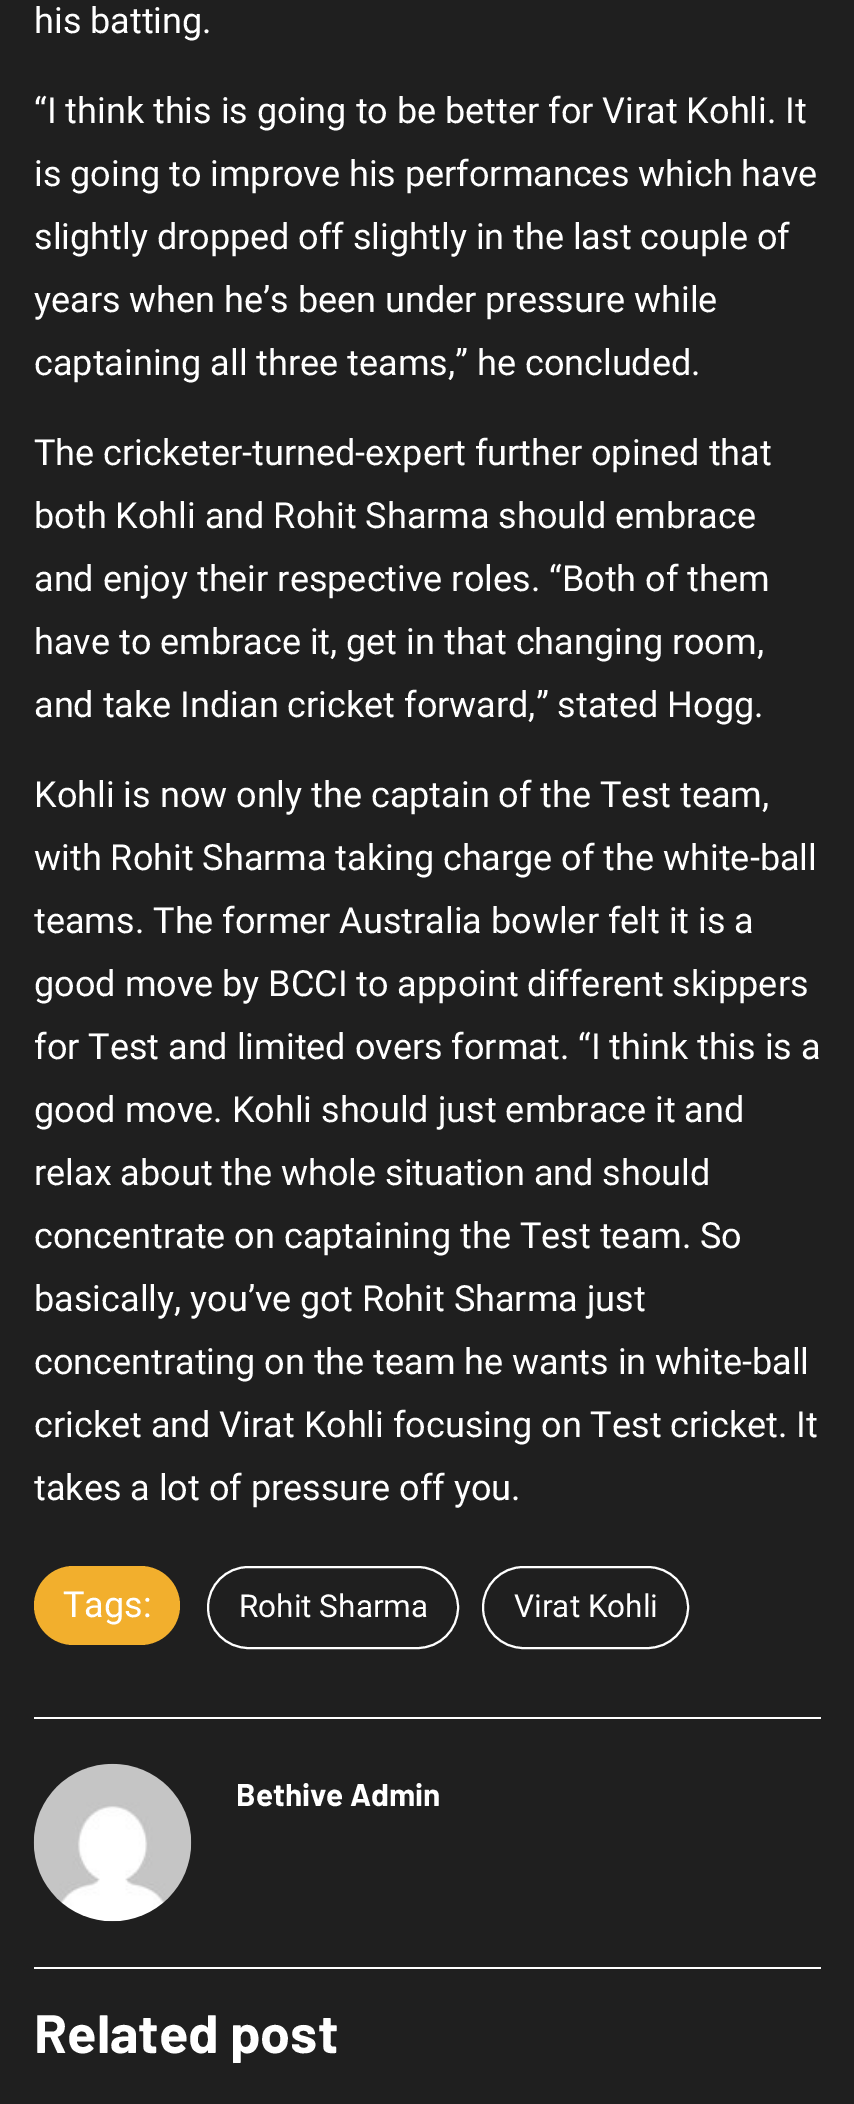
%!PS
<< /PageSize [854 2104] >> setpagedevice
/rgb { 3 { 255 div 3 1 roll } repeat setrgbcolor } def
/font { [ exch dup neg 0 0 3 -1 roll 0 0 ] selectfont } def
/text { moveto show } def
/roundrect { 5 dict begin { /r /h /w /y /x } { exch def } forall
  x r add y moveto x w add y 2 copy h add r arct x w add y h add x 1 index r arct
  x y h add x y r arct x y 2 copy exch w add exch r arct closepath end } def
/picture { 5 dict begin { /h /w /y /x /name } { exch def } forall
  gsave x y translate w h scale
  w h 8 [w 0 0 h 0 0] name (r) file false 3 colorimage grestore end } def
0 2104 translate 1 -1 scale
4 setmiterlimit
31 31 31 rgb
0 0 854 2104 rectfill
242 175 45 rgb
34 1566 146 79 39.5 roundrect fill
255 255 255 rgb
2 setlinewidth
208 1567 250 81 40.5 roundrect stroke
483 1567 205 81 40.5 roundrect stroke
34 1717 787 2 rectfill
34 1967 787 2 rectfill
(img_01.rgb) 33 1763 159 159 picture
/Roboto-Regular 36 font
(his batting.) 34 33 text
(“I think this is going to be better for Virat Kohli. It) 34 123 text
(is going to improve his performances which have) 34 186 text
(slightly dropped off slightly in the last couple of) 34 249 text
(years when he’s been under pressure while) 34 312 text
(captaining all three teams,” he concluded.) 34 375 text
(The cricketer-turned-expert further opined that) 34 465 text
(both Kohli and Rohit Sharma should embrace) 34 528 text
(and enjoy their respective roles. “Both of them) 34 591 text
(have to embrace it, get in that changing room,) 34 654 text
(and take Indian cricket forward,” stated Hogg.) 34 717 text
(Kohli is now only the captain of the Test team,) 34 807 text
(with Rohit Sharma taking charge of the white-ball) 34 870 text
(teams. The former Australia bowler felt it is a) 34 933 text
(good move by BCCI to appoint different skippers) 34 996 text
(for Test and limited overs format. “I think this is a) 34 1059 text
(good move. Kohli should just embrace it and) 34 1122 text
(relax about the whole situation and should) 34 1185 text
(concentrate on captaining the Test team. So) 34 1248 text
(basically, you’ve got Rohit Sharma just) 34 1311 text
(concentrating on the team he wants in white-ball) 34 1374 text
(cricket and Virat Kohli focusing on Test cricket. It) 34 1437 text
(takes a lot of pressure off you.) 34 1500 text
(Tags:) 63 1617 text
/Roboto-Regular 31.5 font
(Rohit Sharma) 239 1617 text
(Virat Kohli) 514 1617 text
/Barlow-Bold 31.5 font
(Bethive Admin) 236 1806 text
/Barlow-Bold 54 font
(Related post) 34 2053 text
showpage
